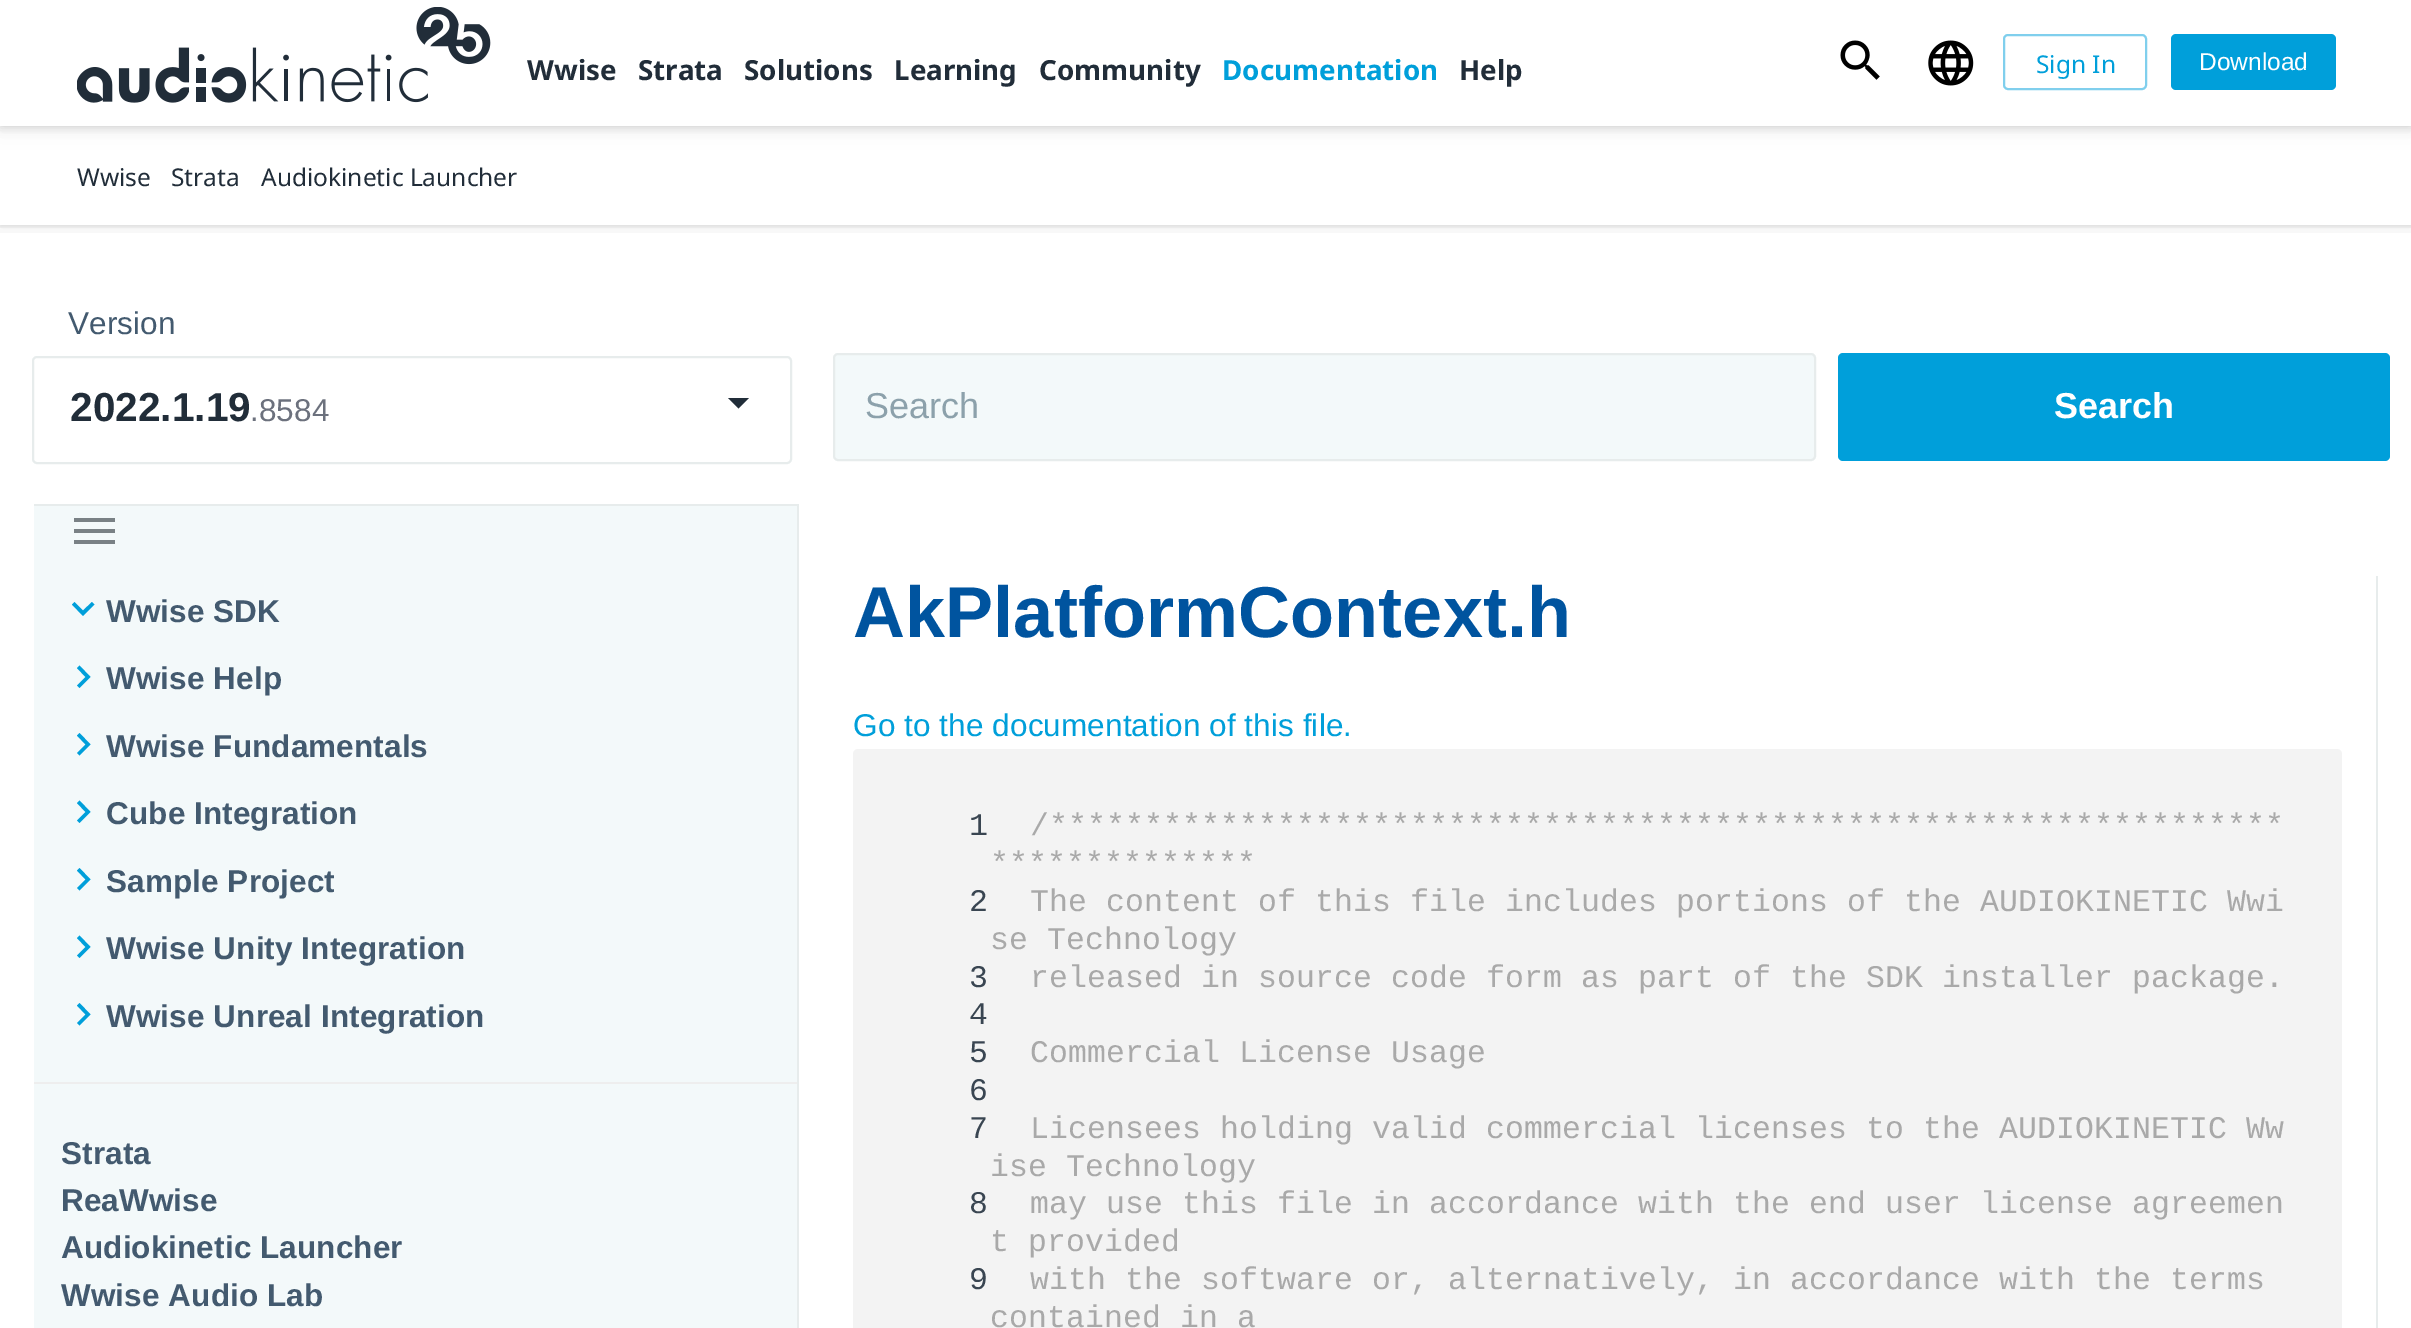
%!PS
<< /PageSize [2411 1328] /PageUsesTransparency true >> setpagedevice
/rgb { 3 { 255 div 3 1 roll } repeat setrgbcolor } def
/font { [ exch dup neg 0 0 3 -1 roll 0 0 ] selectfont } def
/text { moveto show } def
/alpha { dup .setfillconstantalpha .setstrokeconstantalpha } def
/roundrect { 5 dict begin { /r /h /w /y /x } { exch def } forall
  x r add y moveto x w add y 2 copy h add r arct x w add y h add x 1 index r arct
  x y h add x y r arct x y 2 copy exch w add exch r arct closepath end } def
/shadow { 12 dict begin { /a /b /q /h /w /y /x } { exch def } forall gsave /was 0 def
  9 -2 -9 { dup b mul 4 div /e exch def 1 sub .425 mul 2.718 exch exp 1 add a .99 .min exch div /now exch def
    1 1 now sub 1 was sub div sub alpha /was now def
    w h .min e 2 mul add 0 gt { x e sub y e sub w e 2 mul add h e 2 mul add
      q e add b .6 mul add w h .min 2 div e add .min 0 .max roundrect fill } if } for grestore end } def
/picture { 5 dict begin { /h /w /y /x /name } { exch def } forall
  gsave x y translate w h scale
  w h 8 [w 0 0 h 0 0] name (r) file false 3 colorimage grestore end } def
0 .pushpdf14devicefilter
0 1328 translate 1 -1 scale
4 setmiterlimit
255 255 255 rgb
0 0 2411 1328 rectfill
0 0 0 rgb
0 5 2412 126 0 11 0.06 shadow
0 2 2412 126 0 4.5 0.12 shadow
gsave
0 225 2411 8 rectclip
0 128 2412 99 0 9 0.08 shadow
grestore
gsave
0 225 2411 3 rectclip
0 128 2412 99 0 2 0.08 shadow
grestore
255 255 255 rgb
0 0 2411 126 rectfill
(img_01.rgb) 77 7 414 96 picture
(img_02.rgb) 1840 40 40 40 picture
(img_03.rgb) 1928 40 46 46 picture
128 207 237 rgb
2 setlinewidth
2004 35 142 54 4 roundrect stroke
0 159 218 rgb
2171 34 165 56 5 roundrect fill
231 236 236 rgb
33 357 758 106 4 roundrect stroke
33 45 57 rgb
728 398 moveto 21 0 rlineto -10.5 10.5 rlineto closepath fill
243 249 250 rgb
834 354 981 106 4 roundrect gsave fill grestore
231 236 236 rgb
stroke
0 159 218 rgb
1838 353 552 108 5 roundrect fill
243 249 250 rgb
34 506 763 822 rectfill
121 129 133 rgb
74 544 moveto 41 0 rlineto 0 -4 rlineto -41 0 rlineto closepath 74 533 moveto 41 0 rlineto 0 -4 rlineto -41 0 rlineto closepath 74 518 moveto 0 4 rlineto 41 0 rlineto 0 -4 rlineto closepath fill
231 236 236 rgb
34 504 765 2 rectfill
797 504 2 824 rectfill
0 159 218 rgb
74.5 602 moveto 8.5 8.5 rlineto 9 -8.5 rlineto 2.5 2.5 rlineto -11.5 11.5 rlineto -11 -11.5 rlineto closepath fill
77 685.5 moveto 8.5 -8.5 rlineto -8.5 -9 rlineto 2.5 -2.5 rlineto 11 11.5 rlineto -11 11 rlineto closepath fill
77 753 moveto 8.5 -8.5 rlineto -8.5 -9 rlineto 2.5 -2.5 rlineto 11 11.5 rlineto -11 11 rlineto closepath fill
77 820.5 moveto 8.5 -8.5 rlineto -8.5 -9 rlineto 2.5 -2.5 rlineto 11 11.5 rlineto -11 11 rlineto closepath fill
77 888 moveto 8.5 -8.5 rlineto -8.5 -9 rlineto 2.5 -2.5 rlineto 11 11.5 rlineto -11 11 rlineto closepath fill
77 955.5 moveto 8.5 -8.5 rlineto -8.5 -9 rlineto 2.5 -2.5 rlineto 11 11.5 rlineto -11 11 rlineto closepath fill
77 1023 moveto 8.5 -8.5 rlineto -8.5 -9 rlineto 2.5 -2.5 rlineto 11 11.5 rlineto -11 11 rlineto closepath fill
238 238 238 rgb
34 1082 763 2 rectfill
231 236 236 rgb
2376 576 2 752 rectfill
243 243 243 rgb
853 749 1489 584 5 roundrect fill
/NotoSans-Bold 27.75 font
33 45 57 rgb
(Wwise) 527 80 text
(Strata) 638 80 text
(Solutions) 744 80 text
(Learning) 894 80 text
(Community) 1039 80 text
0 159 218 rgb
(Documentation) 1222 80 text
33 45 57 rgb
(Help) 1459 80 text
/NotoSans-Regular 24.5 font
0 159 218 rgb
(Sign In) 2036 73 text
/LiberationSans-Regular 24.5 font
255 255 255 rgb
(Download) 2199 70 text
/NotoSans-Regular 24.5 font
33 45 57 rgb
(Wwise) 77 186 text
(Strata) 171 186 text
(Audiokinetic Launcher) 261 186 text
/LiberationSans-Regular 31.5 font
67 90 111 rgb
68 334 moveto 0.1 0 (Version) ashow
/LiberationSans-Bold 40.5 font
33 45 57 rgb
70 421 moveto 0.1 0 (2022.1.19) ashow
/LiberationSans-Regular 31.5 font
108 113 125 rgb
250 421 moveto 0.1 0 (.8584) ashow
/LiberationSans-Regular 36 font
140 161 171 rgb
(Search) 865 418 text
/LiberationSans-Bold 36 font
255 255 255 rgb
(Search) 2054 418 text
/LiberationSans-Bold 31.5 font
67 90 111 rgb
106 622 moveto 0.1 0 (Wwise SDK) ashow
106 689 moveto 0.1 0 (Wwise Help) ashow
106 757 moveto 0.1 0 (Wwise Fundamentals) ashow
106 824 moveto 0.1 0 (Cube Integration) ashow
106 892 moveto 0.1 0 (Sample Project) ashow
106 959 moveto 0.1 0 (Wwise Unity Integration) ashow
106 1027 moveto 0.1 0 (Wwise Unreal Integration) ashow
61 1164 moveto 0.1 0 (Strata) ashow
61 1211 moveto 0.1 0 (ReaWwise) ashow
61 1258 moveto 0.1 0 (Audiokinetic Launcher) ashow
61 1306 moveto 0.1 0 (Wwise Audio Lab) ashow
/LiberationSans-Bold 72 font
0 84 159 rgb
853 637 moveto 0.1 0 (AkPlatformContext.h) ashow
/LiberationSans-Regular 31.5 font
0 159 218 rgb
853 736 moveto 0.1 0 (Go to the documentation of this file.) ashow
/LiberationMono-Regular 31.5 font
57 69 81 rgb
969 835 moveto 0.1 0 (1) ashow
169 169 169 rgb
1030 835 moveto 0.1 0 (/*****************************************************************) ashow
990 873 moveto 0.1 0 (**************) ashow
57 69 81 rgb
969 911 moveto 0.1 0 (2) ashow
169 169 169 rgb
1030 911 moveto 0.1 0 (The content of this file includes portions of the AUDIOKINETIC Wwi) ashow
990 949 moveto 0.1 0 (se Technology) ashow
57 69 81 rgb
969 987 moveto 0.1 0 (3) ashow
169 169 169 rgb
1030 987 moveto 0.1 0 (released in source code form as part of the SDK installer package.) ashow
57 69 81 rgb
969 1024 moveto 0.1 0 (4) ashow
969 1062 moveto 0.1 0 (5) ashow
169 169 169 rgb
1030 1062 moveto 0.1 0 (Commercial License Usage) ashow
57 69 81 rgb
969 1100 moveto 0.1 0 (6) ashow
969 1138 moveto 0.1 0 (7) ashow
169 169 169 rgb
1030 1138 moveto 0.1 0 (Licensees holding valid commercial licenses to the AUDIOKINETIC Ww) ashow
990 1176 moveto 0.1 0 (ise Technology) ashow
57 69 81 rgb
969 1213 moveto 0.1 0 (8) ashow
169 169 169 rgb
1030 1213 moveto 0.1 0 (may use this file in accordance with the end user license agreemen) ashow
990 1251 moveto 0.1 0 (t provided) ashow
57 69 81 rgb
969 1289 moveto 0.1 0 (9) ashow
169 169 169 rgb
1030 1289 moveto 0.1 0 (with the software or, alternatively, in accordance with the terms) ashow
990 1327 moveto 0.1 0 (contained in a) ashow
.poppdf14devicefilter showpage
